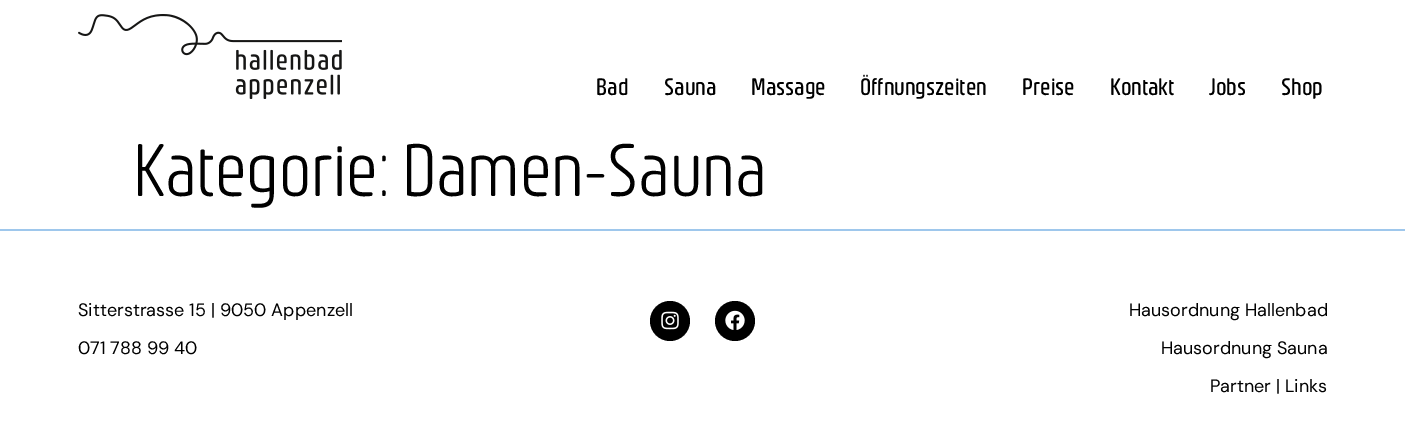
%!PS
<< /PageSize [1405 431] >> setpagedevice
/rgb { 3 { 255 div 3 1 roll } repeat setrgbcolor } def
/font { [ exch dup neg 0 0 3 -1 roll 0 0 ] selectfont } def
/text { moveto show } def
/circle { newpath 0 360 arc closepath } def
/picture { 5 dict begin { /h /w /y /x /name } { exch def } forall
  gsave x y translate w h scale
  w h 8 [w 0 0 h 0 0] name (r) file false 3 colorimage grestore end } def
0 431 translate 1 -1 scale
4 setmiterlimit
255 255 255 rgb
0 0 1405 431 rectfill
(img_01.rgb) 78 14 264 85 picture
158 199 236 rgb
0 229 1405 2 rectfill
0 0 0 rgb
670 321 20 circle fill
(img_02.rgb) 661 311 18 19 picture
735 321 20 circle fill
(img_03.rgb) 725 310 20 20 picture
/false-Regular 24 font
(Bad) 596 95 text
(Sauna) 664 95 text
(Massage) 751 95 text
(Öffnungszeiten) 860 95 text
(Preise) 1022 95 text
(Kontakt) 1110 95 text
(Jobs) 1209 95 text
(Shop) 1281 95 text
/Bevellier-Light 75 font
(Kategorie: Damen-Sauna) 133 196 text
/DMSans-Regular 18 font
(Sitterstrasse 15 | 9050 Appenzell) 78 316 text
(071 788 99 40) 78 354 text
(Hausordnung Hallenbad) 1129 316 text
(Hausordnung Sauna) 1161 354 text
(Partner | Links) 1210 392 text
showpage
